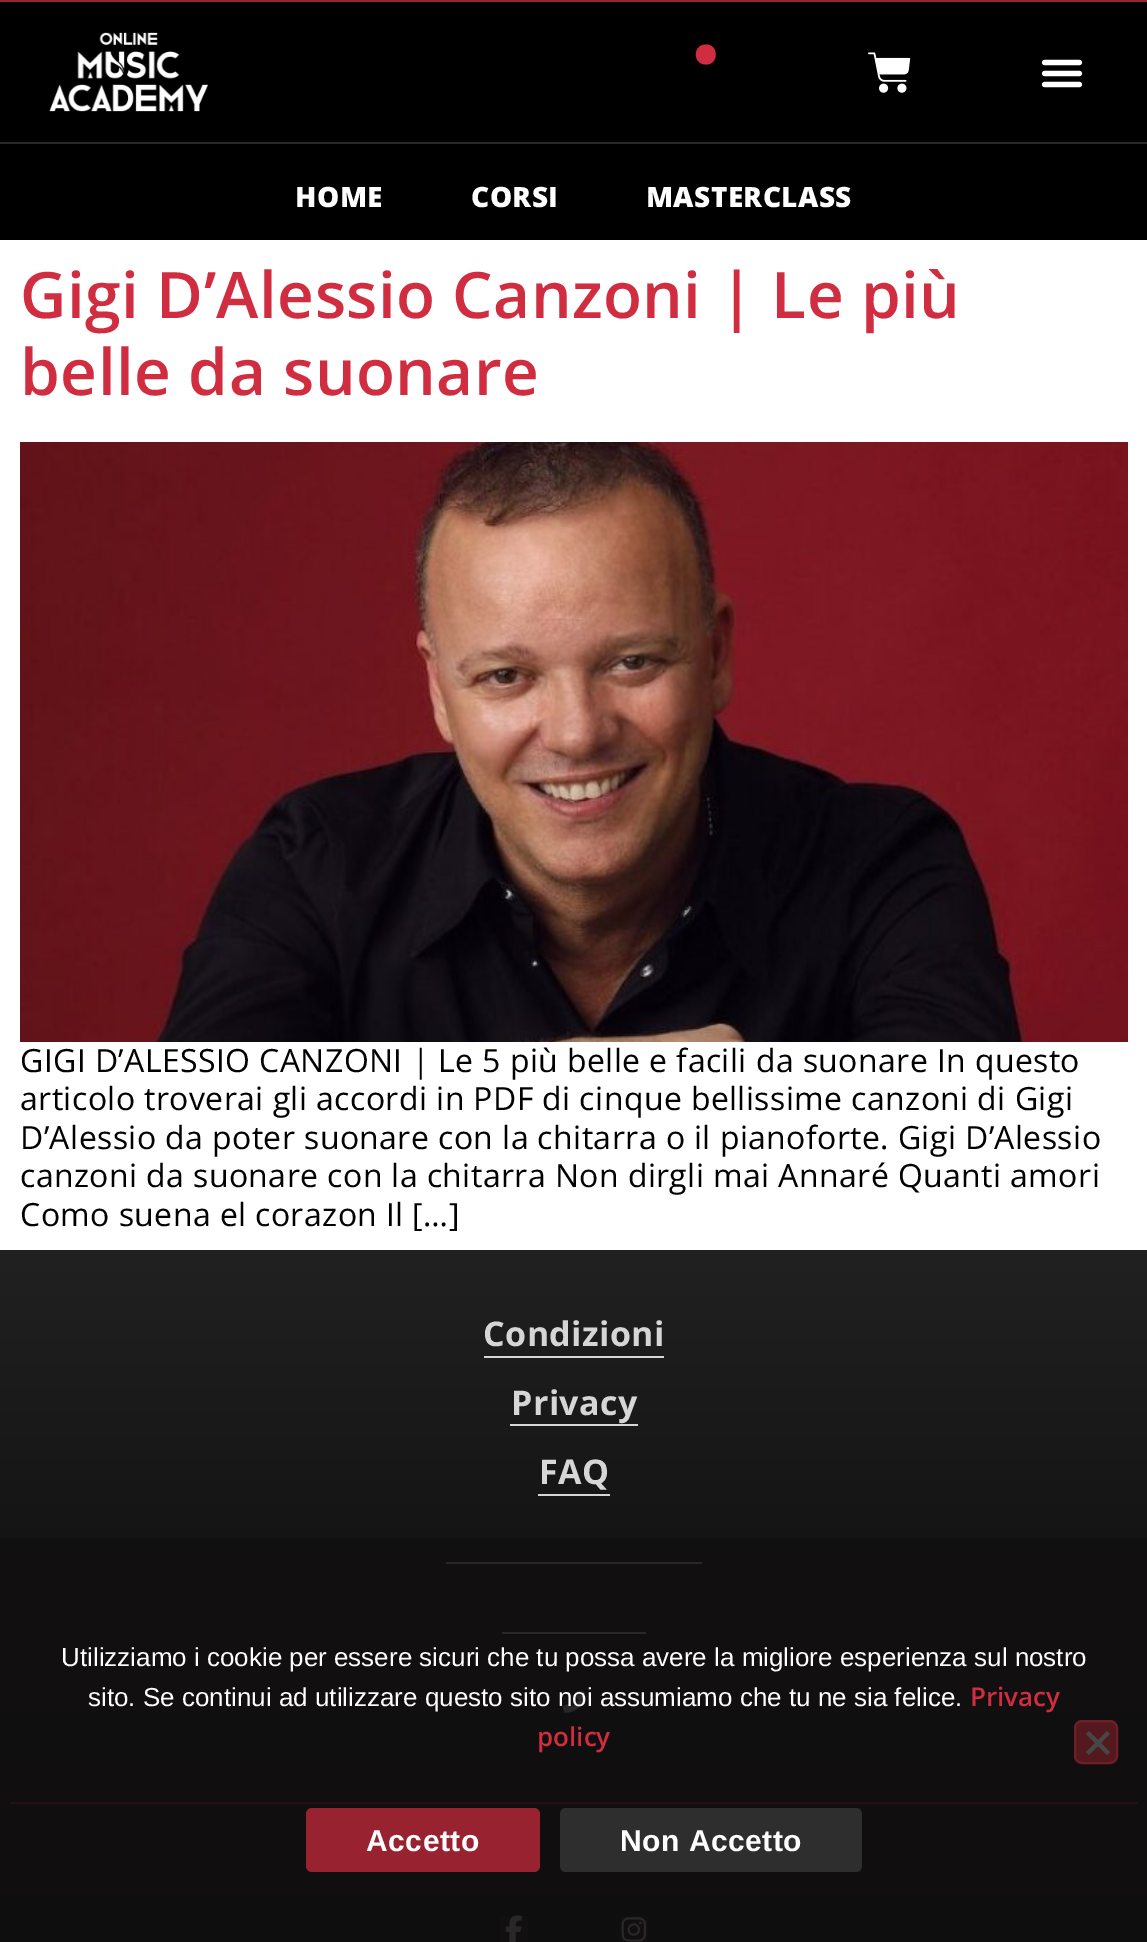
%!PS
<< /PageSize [1147 1942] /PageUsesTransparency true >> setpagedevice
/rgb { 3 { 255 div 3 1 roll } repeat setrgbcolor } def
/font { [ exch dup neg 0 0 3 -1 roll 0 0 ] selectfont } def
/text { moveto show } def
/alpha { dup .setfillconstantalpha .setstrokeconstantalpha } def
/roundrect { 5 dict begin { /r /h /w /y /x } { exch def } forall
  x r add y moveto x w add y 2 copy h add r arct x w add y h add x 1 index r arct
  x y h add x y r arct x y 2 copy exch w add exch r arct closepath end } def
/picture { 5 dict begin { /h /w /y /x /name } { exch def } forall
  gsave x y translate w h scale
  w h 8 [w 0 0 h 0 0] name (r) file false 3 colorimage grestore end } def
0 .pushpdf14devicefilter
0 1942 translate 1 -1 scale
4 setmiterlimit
255 255 255 rgb
0 0 1147 1942 rectfill
0 0 0 rgb
0 2 1147 238 rectfill
152 34 48 rgb
0 0 1147 2 rectfill
(img_01.rgb) 49 32 159 80 picture
209 45 64 rgb
706 64.5 moveto 13 0 13 -20 0 -20 rcurveto -13.5 0 -13.5 20 0 20 rcurveto closepath fill
(img_02.rgb) 868 52 43 41 picture
(img_03.rgb) 1041 59 42 29 picture
41 41 41 rgb
0 142 1147 2 rectfill
(img_04.rgb) 20 442 1108 600 picture
gsave 0 1250 moveto 1147 0 rlineto 0 692 rlineto -1147 0 rlineto closepath clip newpath
<< /ShadingType 2 /ColorSpace /DeviceRGB /Coords [574 1250 574 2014] /Extend [true true] /Function << /FunctionType 2 /Domain [0 1] /C0 [0.129 0.129 0.129] /C1 [0 0 0] /N 1 >> >> shfill grestore
152 34 48 rgb
10 1802 1128 2 rectfill
214 214 214 rgb
484 1356 180 2 rectfill
510 1424 128 2 rectfill
213 213 213 rgb
538 1494 72 2 rectfill
446 1562 256 2 rectfill
212 212 212 rgb
502 1632 144 2 rectfill
(img_05.rgb) 562 1690 23 23 picture
16 16 16 rgb
500 1916 28 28 3 roundrect fill
(img_06.rgb) 505 1915 17 27 picture
620 1916 28 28 3 roundrect fill
(img_07.rgb) 621 1917 26 25 picture
0.88 alpha
17 15 15 rgb
0 1538 1147 404 rectfill
1 alpha
84 24 31 rgb
1075 1721 42 42 7 roundrect gsave fill grestore
113 30 39 rgb
2 setlinewidth
stroke
72 71 71 rgb
1107 1731 moveto 3 3 rlineto -21 21 rlineto -3 -3 rlineto closepath fill
1086 1734 moveto 3 -3 rlineto 21 21 rlineto -3 3 rlineto closepath fill
152 34 48 rgb
306 1808 234 64 6 roundrect fill
46 46 46 rgb
560 1808 302 64 6 roundrect fill
/OpenSans-ExtraBold 28 font
255 255 255 rgb
295 207 moveto 0.4 0 (HOME) ashow
471 207 moveto 0.4 0 (CORSI) ashow
646 207 moveto 0.4 0 (MASTERCLASS) ashow
/OpenSans-SemiBold 64 font
209 45 64 rgb
20 318 moveto 0.4 0 (Gigi D’Alessio Canzoni | Le più) ashow
20 395 moveto 0.4 0 (belle da suonare) ashow
/OpenSans-Regular 32 font
0 0 0 rgb
20 1072 moveto 0.4 0 (GIGI D’ALESSIO CANZONI | Le 5 più belle e facili da suonare In questo) ashow
20 1110 moveto 0.4 0 (articolo troverai gli accordi in PDF di cinque bellissime canzoni di Gigi) ashow
20 1149 moveto 0.4 0 (D’Alessio da poter suonare con la chitarra o il pianoforte. Gigi D’Alessio) ashow
20 1187 moveto 0.4 0 (canzoni da suonare con la chitarra Non dirgli mai Annaré Quanti amori) ashow
20 1226 moveto 0.4 0 (Como suena el corazon Il […]) ashow
/OpenSans-Bold 34 font
214 214 214 rgb
483 1346 moveto 0.4 0 (Condizioni) ashow
511 1415 moveto 0.4 0 (Privacy) ashow
539 1484 moveto 0.4 0 (FAQ) ashow
/LiberationSans-Regular 26 font
255 255 255 rgb
(Utilizziamo i cookie per essere sicuri che tu possa avere la migliore esperienza sul nostro) 61 1666 text
(sito. Se continui ad utilizzare questo sito noi assumiamo che tu ne sia felice.) 88 1706 text
/OpenSans-SemiBold 26 font
209 45 64 rgb
(Privacy) 970 1706 text
(policy) 537 1746 text
/LiberationSans-Bold 30 font
255 255 255 rgb
366 1851 moveto 0.5 0 (Accetto) ashow
620 1851 moveto 0.5 0 (Non Accetto) ashow
.poppdf14devicefilter showpage
